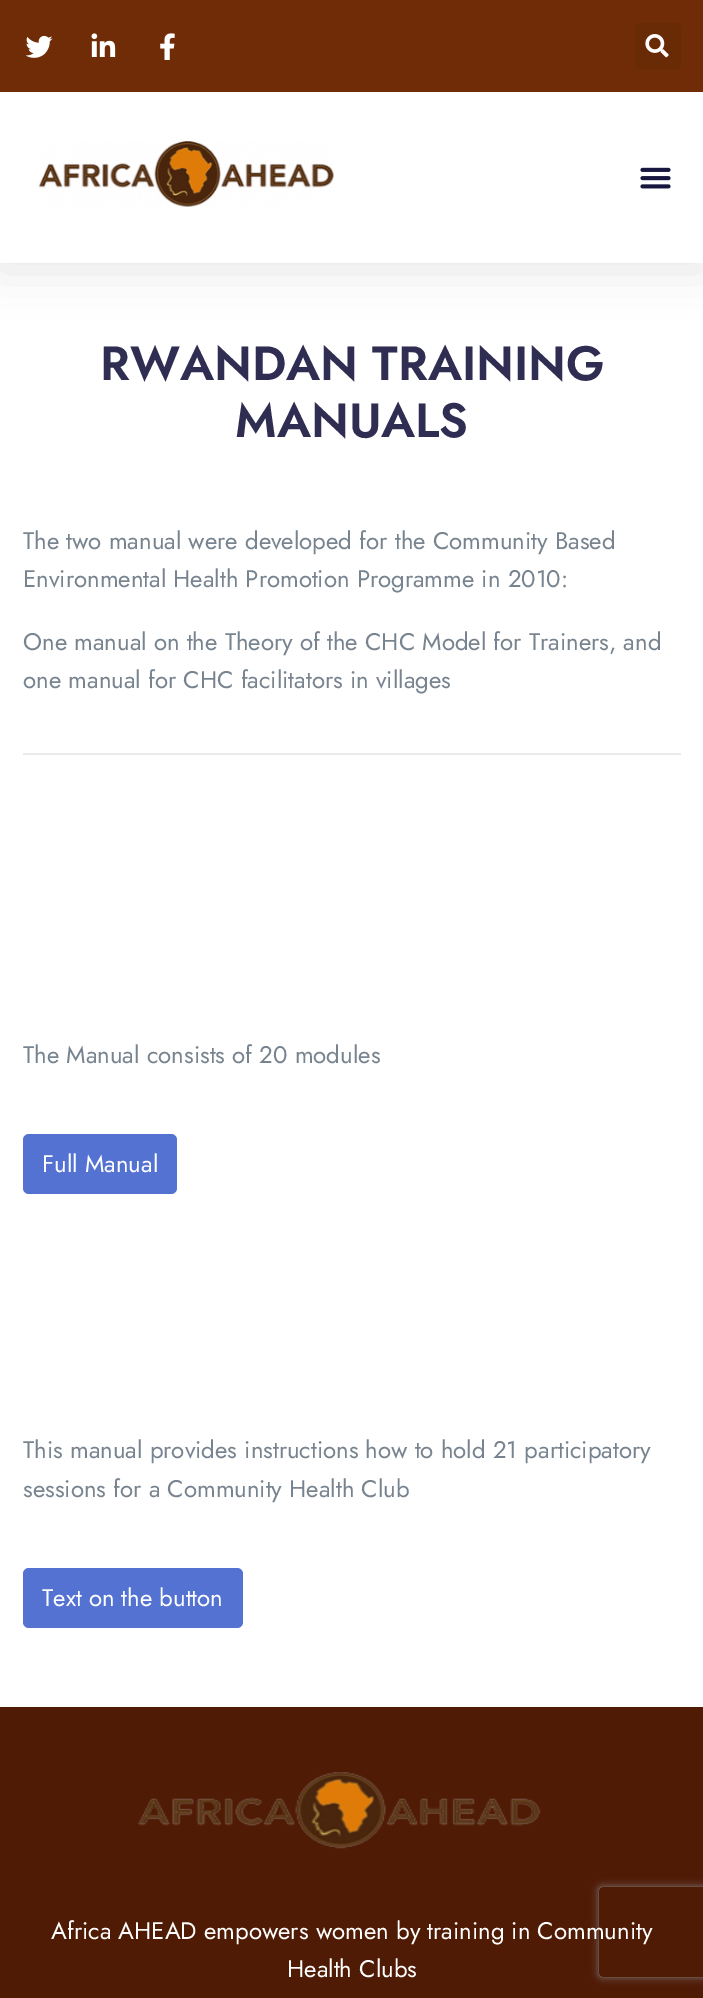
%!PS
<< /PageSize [703 1998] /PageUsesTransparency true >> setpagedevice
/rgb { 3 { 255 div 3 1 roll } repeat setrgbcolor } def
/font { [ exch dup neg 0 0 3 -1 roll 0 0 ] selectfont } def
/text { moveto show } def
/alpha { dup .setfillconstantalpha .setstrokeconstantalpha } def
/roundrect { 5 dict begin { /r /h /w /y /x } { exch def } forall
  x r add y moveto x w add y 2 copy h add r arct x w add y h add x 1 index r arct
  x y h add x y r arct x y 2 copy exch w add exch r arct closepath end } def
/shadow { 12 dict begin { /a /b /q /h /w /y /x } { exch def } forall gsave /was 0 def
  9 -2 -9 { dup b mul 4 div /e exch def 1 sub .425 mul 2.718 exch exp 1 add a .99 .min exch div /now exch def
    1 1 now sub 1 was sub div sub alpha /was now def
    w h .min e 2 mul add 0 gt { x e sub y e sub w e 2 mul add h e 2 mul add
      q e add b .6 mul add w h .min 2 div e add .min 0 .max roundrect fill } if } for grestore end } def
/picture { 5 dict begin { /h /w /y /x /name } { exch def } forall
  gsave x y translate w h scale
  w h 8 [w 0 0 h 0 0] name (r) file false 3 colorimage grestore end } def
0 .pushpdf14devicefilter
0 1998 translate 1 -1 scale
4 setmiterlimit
255 255 255 rgb
0 0 703 1998 rectfill
0 0 0 rgb
0 8 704 262 0 22.5 0.1 shadow
111 44 6 rgb
0 0 703 92 rectfill
(img_01.rgb) 25 35 28 23 picture
(img_02.rgb) 91 33 25 24 picture
(img_03.rgb) 160 33 15 27 picture
105 42 6 rgb
635 23 46 46 5 roundrect fill
(img_04.rgb) 645 34 24 24 picture
255 255 255 rgb
0 92 703 171 rectfill
(img_05.rgb) 38 141 296 66 picture
(img_06.rgb) 640 167 31 22 picture
235 235 235 rgb
23 753 658 2 rectfill
84 114 210 rgb
23 1134 154 60 6 roundrect fill
23 1568 220 60 6 roundrect fill
79 27 5 rgb
0 1707 703 291 rectfill
gsave
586 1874 moveto 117 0 rlineto 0 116 rlineto -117 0 rlineto closepath 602 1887 moveto 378 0 rlineto 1.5 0 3 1.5 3 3 rcurveto 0 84 rlineto 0 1.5 -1.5 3 -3 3 rcurveto -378 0 rlineto -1.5 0 -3 -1.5 -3 -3 rcurveto 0 -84 rlineto 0 -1.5 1.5 -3 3 -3 rcurveto closepath eoclip newpath
128 128 128 rgb
599 1887 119 90 3 4 1 shadow
grestore
(img_07.rgb) 137 1772 404 77 picture
/Jost-SemiBold 48 font
47 45 81 rgb
(RWANDAN TRAINING) 100 380 text
(MANUALS) 235 437 text
/Jost-Regular 24 font
119 131 143 rgb
(The two manual were developed for the Community Based) 23 549 text
(Environmental Health Promotion Programme in 2010:) 23 587 text
(One manual on the Theory of the CHC Model for Trainers, and) 23 650 text
(one manual for CHC facilitators in villages) 23 688 text
(The Manual consists of 20 modules) 23 1063 text
255 255 255 rgb
(Full Manual) 42 1172 text
119 131 143 rgb
(This manual provides instructions how to hold 21 participatory) 23 1458 text
(sessions for a Community Health Club) 23 1497 text
255 255 255 rgb
(Text on the button) 42 1606 text
(Africa AHEAD empowers women by training in Community) 51 1939 text
(Health Clubs) 287 1977 text
.poppdf14devicefilter showpage
